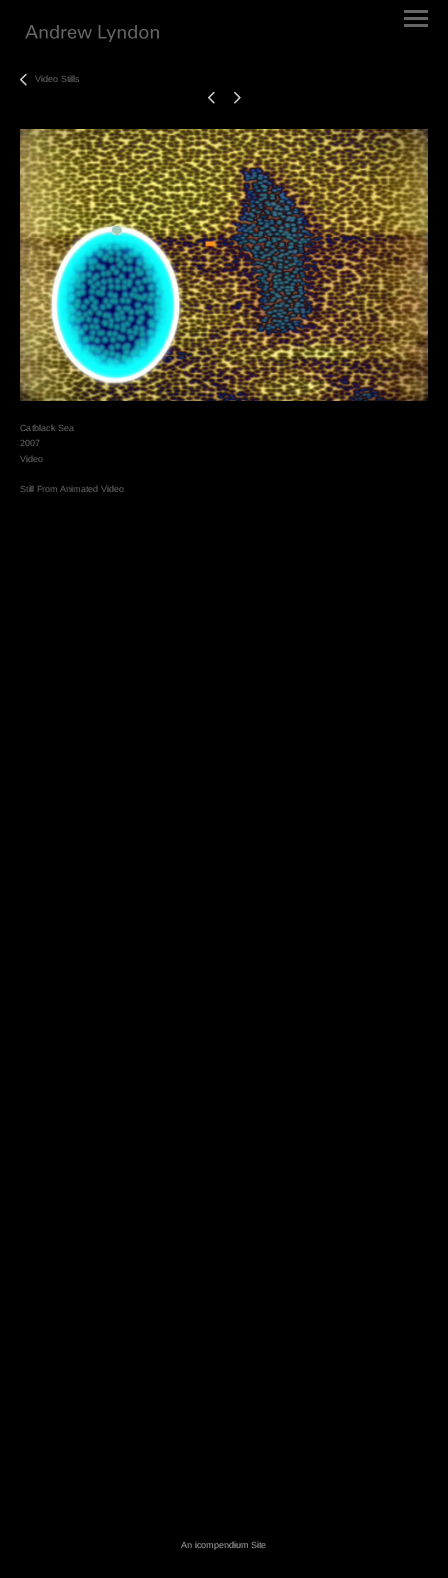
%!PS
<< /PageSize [448 1578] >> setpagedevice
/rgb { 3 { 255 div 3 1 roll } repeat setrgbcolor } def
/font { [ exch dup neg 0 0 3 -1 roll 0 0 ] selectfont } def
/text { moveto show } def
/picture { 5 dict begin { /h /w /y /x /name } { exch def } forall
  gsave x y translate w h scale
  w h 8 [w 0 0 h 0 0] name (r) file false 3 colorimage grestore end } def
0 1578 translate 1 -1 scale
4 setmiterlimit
0 0 0 rgb
0 0 448 1578 rectfill
102 102 102 rgb
404 10 24 3 rectfill
404 17 24 3 rectfill
404 24 24 3 rectfill
(img_01.rgb) 25 25 134 17 picture
(img_02.rgb) 20 73 7 13 picture
(img_02.rgb) 208 91 7 13 picture
(img_03.rgb) 234 91 7 13 picture
(img_04.rgb) 20 129 408 272 picture
/LiberationSans-Regular 9 font
(Video Stills) 35 82 text
(Catblack Sea) 20 431 text
(2007) 20 446 text
(Video) 20 462 text
(Still From Animated Video) 20 492 text
164 164 164 rgb
(An icompendium Site) 181 1548 text
showpage
